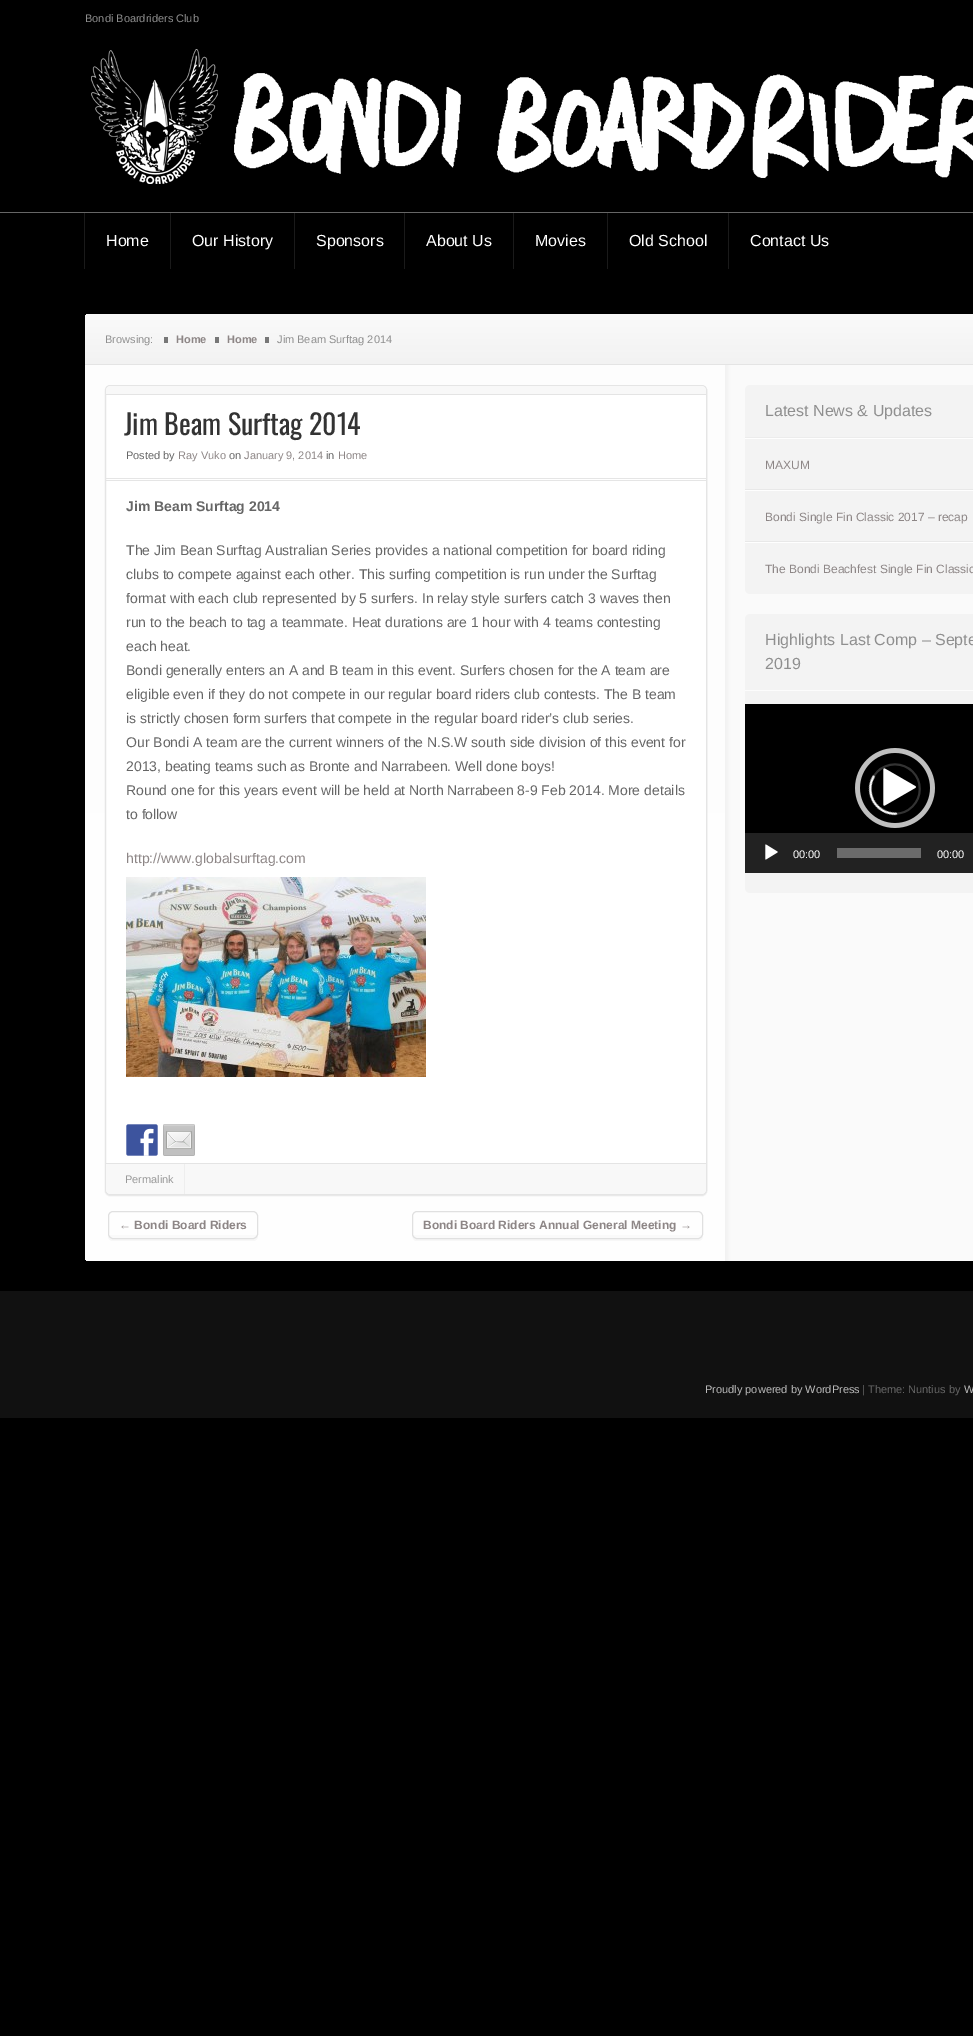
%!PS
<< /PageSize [973 2036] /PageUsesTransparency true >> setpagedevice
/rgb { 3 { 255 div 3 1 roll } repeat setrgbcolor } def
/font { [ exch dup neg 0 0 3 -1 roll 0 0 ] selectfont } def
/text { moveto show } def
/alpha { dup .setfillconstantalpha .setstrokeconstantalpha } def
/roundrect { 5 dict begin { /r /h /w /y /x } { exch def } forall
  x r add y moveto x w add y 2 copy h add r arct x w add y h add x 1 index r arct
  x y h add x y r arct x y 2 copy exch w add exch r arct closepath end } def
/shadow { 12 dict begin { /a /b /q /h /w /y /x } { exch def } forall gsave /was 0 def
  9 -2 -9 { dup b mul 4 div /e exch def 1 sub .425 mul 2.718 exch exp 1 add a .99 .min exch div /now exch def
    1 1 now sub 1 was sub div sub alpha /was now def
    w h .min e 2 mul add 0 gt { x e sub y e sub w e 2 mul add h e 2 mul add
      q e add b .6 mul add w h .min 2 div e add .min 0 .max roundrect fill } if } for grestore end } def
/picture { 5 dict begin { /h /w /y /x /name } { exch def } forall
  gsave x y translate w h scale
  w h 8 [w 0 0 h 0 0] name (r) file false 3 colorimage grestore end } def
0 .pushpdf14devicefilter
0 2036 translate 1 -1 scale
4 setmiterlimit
0 0 0 rgb
0 0 973 2036 rectfill
(img_01.rgb) 91 49 882 135 picture
102 102 102 rgb
0 212 973 1 rectfill
26 26 26 rgb
84 213 1 56 rectfill
170 213 1 56 rectfill
294 213 1 56 rectfill
404 213 1 56 rectfill
513 213 1 56 rectfill
607 213 1 56 rectfill
728 213 1 56 rectfill
gsave 90 314 moveto 883 0 rlineto 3 0 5 2 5 5 rcurveto 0 45 rlineto -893 0 rlineto 0 -45 rlineto 0 -3 2 -5 5 -5 rcurveto closepath clip newpath
<< /ShadingType 2 /ColorSpace /DeviceRGB /Coords [85 314 85 364] /Extend [true true] /Function << /FunctionType 2 /Domain [0 1] /C0 [0.98 0.98 0.98] /C1 [0.949 0.949 0.949] /N 1 >> >> shfill grestore
228 228 228 rgb
85 364 888 1 rectfill
119 119 119 rgb
164 337 4 6 rectfill
215 337 4 6 rectfill
265 337 4 6 rectfill
(img_02.rgb) 85 365 888 896 picture
gsave 85 365 moveto 640 0 rlineto 0 896 rlineto -635 0 rlineto -3 0 -5 -2 -5 -5 rcurveto closepath clip newpath
<< /ShadingType 2 /ColorSpace /DeviceRGB /Coords [85 365 85 1261] /Extend [true true] /Function << /FunctionType 2 /Domain [0 1] /C0 [0.992 0.992 0.992] /C1 [1 1 1] /N 1 >> >> shfill grestore
231 231 231 rgb
105 386 602 810 5 0.5 1 shadow
255 255 255 rgb
105.5 385.5 601 809 4.5 roundrect gsave fill grestore
229 229 229 rgb
stroke
248 248 248 rgb
111 386 moveto 590 0 rlineto 3 0 5 2 5 5 rcurveto 0 4 rlineto -600 0 rlineto 0 -4 rlineto 0 -3 2 -5 5 -5 rcurveto closepath fill
228 228 228 rgb
106 394 600 1 rectfill
229 229 229 rgb
106 478 600 1 rectfill
106 480 600 1 rectfill
(img_03.rgb) 126 877 300 200 picture
(img_04.rgb) 126 1124 32 32 picture
(img_05.rgb) 163 1124 32 32 picture
248 248 248 rgb
106 1163 moveto 600 0 rlineto 0 26 rlineto 0 3 -2 5 -5 5 rcurveto -590 0 rlineto -3 0 -5 -2 -5 -5 rcurveto closepath fill
228 228 228 rgb
106 1163 600 1 rectfill
238 238 238 rgb
184 1164 1 30 rectfill
247 247 247 rgb
108 1234 moveto 0 2 rlineto 0 3 2 5 5 5 rcurveto 140 0 rlineto 3 0 5 -2 5 -5 rcurveto 0 -2 rlineto 0 3 -2 5 -5 5 rcurveto -140 0 rlineto -3 0 -5 -2 -5 -5 rcurveto closepath fill
250 250 250 rgb
109 1235 148 3 rectfill
224 224 224 rgb
108.5 1211.5 149 27 4.5 roundrect stroke
247 247 247 rgb
412 1234 moveto 0 3 1 7 5 7 rcurveto 282 0 rlineto 4 -1 4 -4 4 -7 rcurveto 0 3 -2 5 -5 5 rcurveto -281 0 rlineto -3 0 -5 -2 -5 -5 rcurveto closepath fill
250 250 250 rgb
413 1235 289 3 rectfill
224 224 224 rgb
412.5 1211.5 290 27 4.5 roundrect stroke
243 243 243 rgb
745 385 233 209 5 roundrect fill
236 236 236 rgb
745 437 228 1 rectfill
254 254 254 rgb
745 438 228 1 rectfill
232 232 232 rgb
745 489 228 1 rectfill
254 254 254 rgb
745 490 228 1 rectfill
232 232 232 rgb
745 541 228 1 rectfill
254 254 254 rgb
745 542 228 1 rectfill
243 243 243 rgb
745 614 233 279 5 roundrect fill
252 252 252 rgb
745 690 228 1 rectfill
(img_06.rgb) 745 704 228 129 picture
(img_07.rgb) 855 748 80 80 picture
34 34 34 rgb
745 833 228 40 rectfill
(img_08.rgb) 765 844 13 16 picture
107 107 107 rgb
837 848 84 10 rectfill
17 17 17 rgb
0 1291 973 127 rectfill
/LiberationSans-Regular 11 font
143 143 143 rgb
(Bondi Boardriders Club) 85 22 text
/LiberationSans-Regular 16 font
255 255 255 rgb
(Home) 106 246 text
(Our History) 192 246 text
(Sponsors) 316 246 text
(About Us) 426 246 text
(Movies) 535 246 text
(Old School) 629 246 text
(Contact Us) 750 246 text
/LiberationSans-Regular 11 font
143 143 143 rgb
(Browsing:) 105 343 text
/LiberationSans-Bold 11 font
141 134 134 rgb
(Home) 176 343 text
(Home) 227 343 text
/LiberationSans-Regular 11 font
143 143 143 rgb
(Jim Beam Surftag 2014) 277 343 text
/Oswald-Regular 28 font
51 51 51 rgb
(Jim Beam Surftag 2014) 124 435 text
/LiberationSans-Regular 11 font
102 102 102 rgb
(Posted by) 126 459 text
141 134 134 rgb
(Ray Vuko) 178 459 text
102 102 102 rgb
(on) 229 459 text
141 134 134 rgb
(January 9, 2014) 244 459 text
102 102 102 rgb
(in) 326 459 text
141 134 134 rgb
(Home) 338 459 text
/LiberationSans-Bold 14 font
102 102 102 rgb
(Jim Beam Surftag 2014) 126 511 text
/LiberationSans-Regular 14 font
(The Jim Bean Surftag Australian Series provides a national competition for board riding) 126 555 text
(clubs to compete against each other. This surfing competition is run under the Surftag) 126 579 text
(format with each club represented by 5 surfers. In relay style surfers catch 3 waves then) 126 603 text
(run to the beach to tag a teammate. Heat durations are 1 hour with 4 teams contesting) 126 627 text
(each heat.) 126 651 text
(Bondi generally enters an A and B team in this event. Surfers chosen for the A team are) 126 675 text
(eligible even if they do not compete in our regular board riders club contests. The B team) 126 699 text
(is strictly chosen form surfers that compete in the regular board rider’s club series.) 126 723 text
(Our Bondi A team are the current winners of the N.S.W south side division of this event for) 126 747 text
(2013, beating teams such as Bronte and Narrabeen. Well done boys!) 126 771 text
(Round one for this years event will be held at North Narrabeen 8-9 Feb 2014. More details) 126 795 text
(to follow) 126 819 text
141 134 134 rgb
(http://www.globalsurftag.com) 126 863 text
/LiberationSans-Regular 11 font
153 153 153 rgb
(Permalink) 125 1183 text
/LiberationSans-Bold 12 font
141 134 134 rgb
(← Bondi Board Riders) 119 1229 text
(Bondi Board Riders Annual General Meeting →) 423 1229 text
/LiberationSans-Regular 16 font
143 143 143 rgb
(Latest News & Updates) 765 416 text
/LiberationSans-Regular 12 font
141 134 134 rgb
(MAXUM) 765 469 text
(Bondi Single Fin Classic 2017 – recap) 765 521 text
(The Bondi Beachfest Single Fin Classic) 765 573 text
/LiberationSans-Regular 16 font
143 143 143 rgb
(Highlights Last Comp – Septe) 765 645 text
(2019) 765 669 text
/LiberationSans-Regular 11 font
255 255 255 rgb
(00:00) 793 858 text
(00:00) 937 858 text
187 187 187 rgb
(Proudly powered by WordPress) 705 1393 text
102 102 102 rgb
(| Theme: Nuntius by) 862 1393 text
187 187 187 rgb
(W) 964 1393 text
.poppdf14devicefilter showpage
